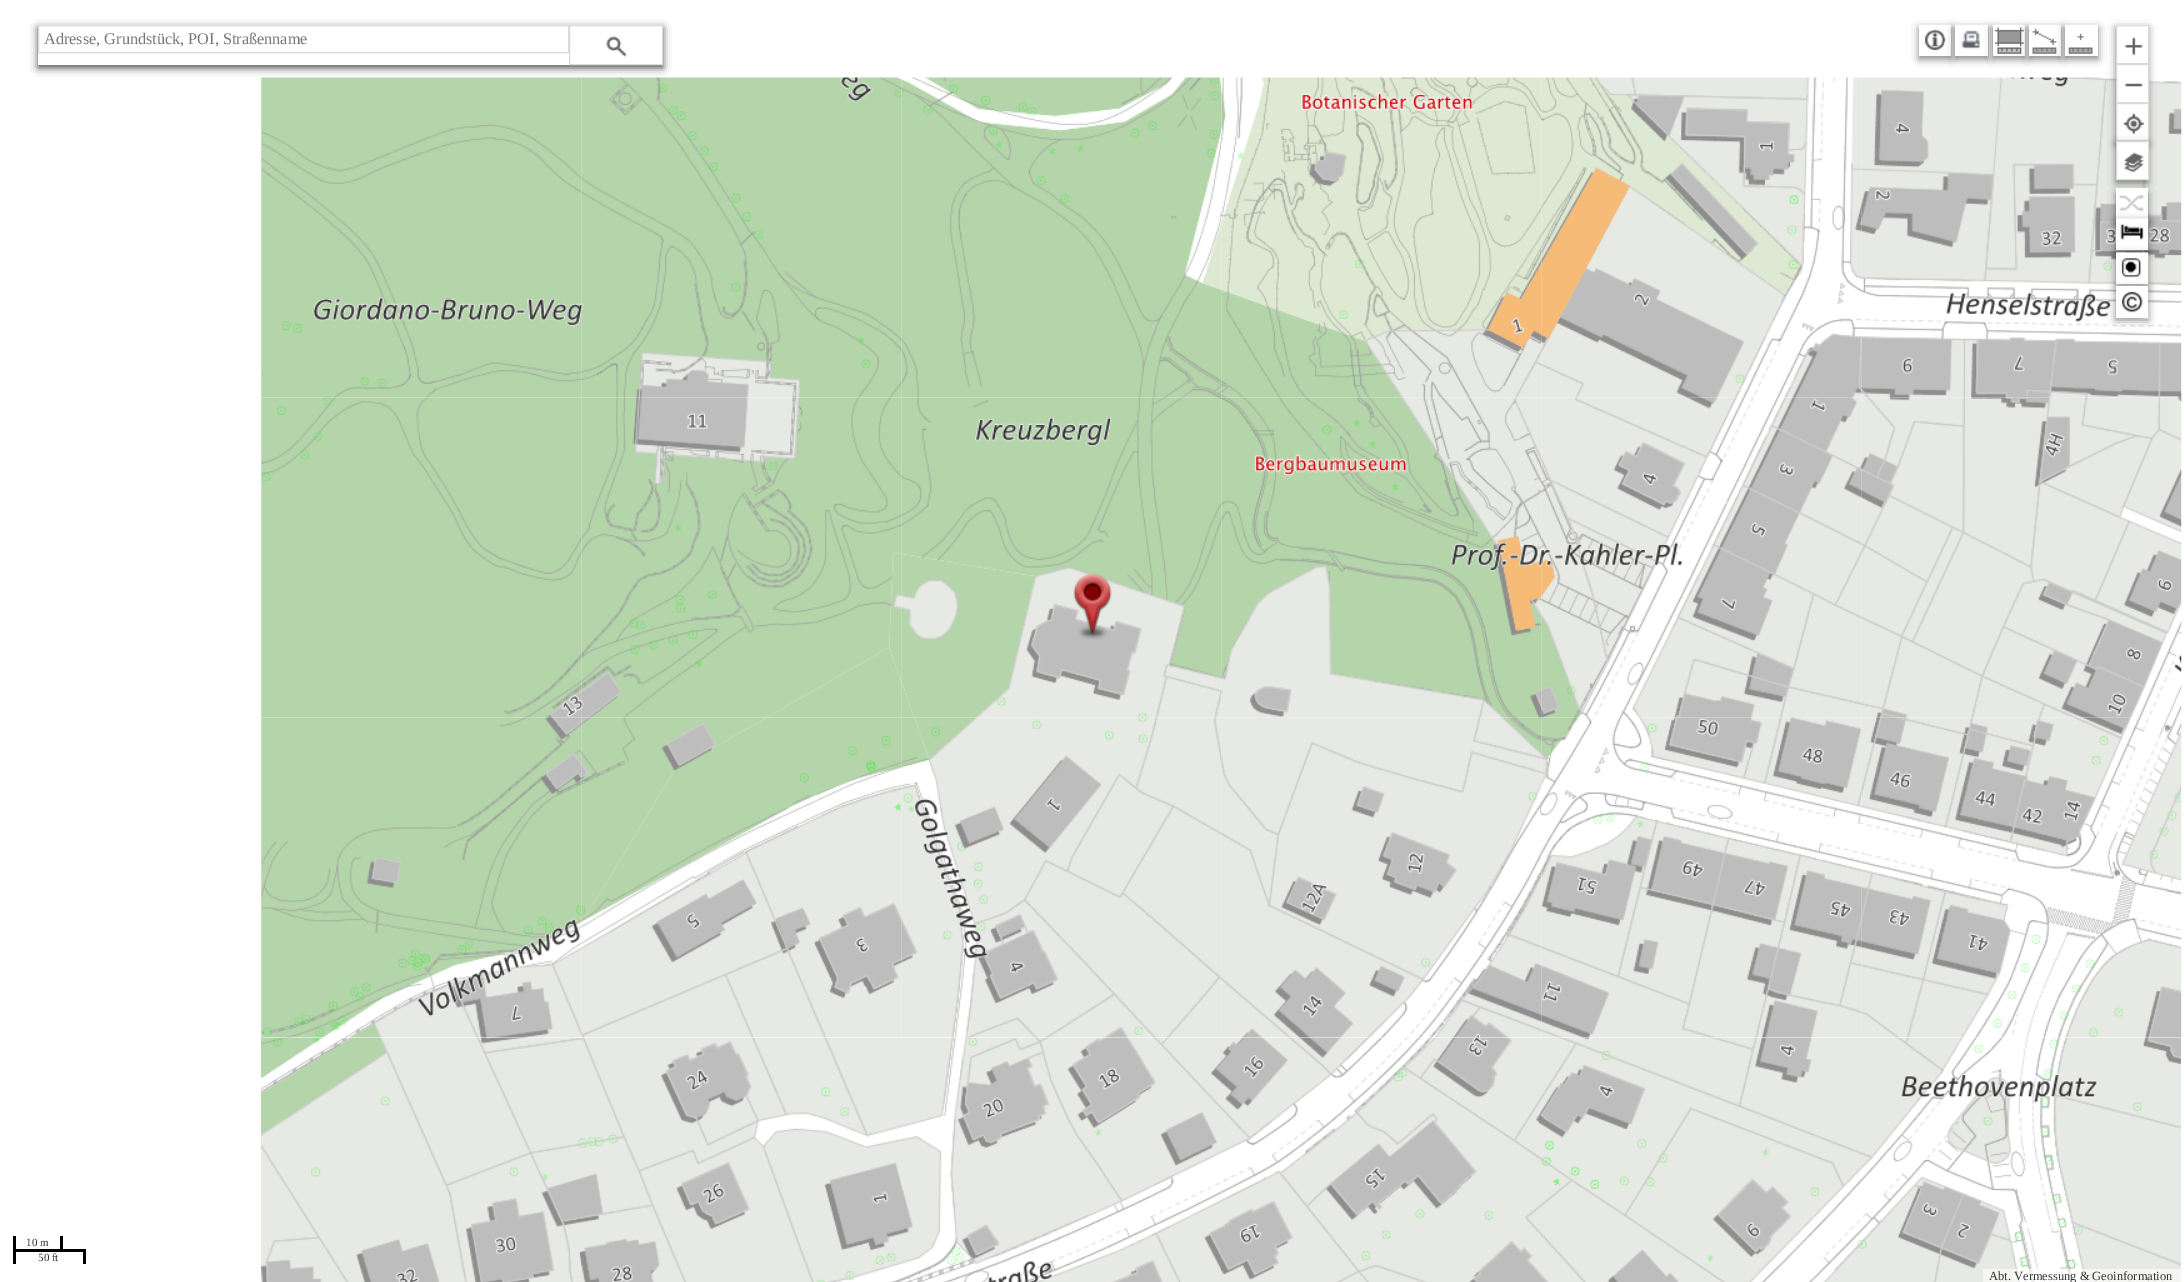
%!PS
<< /PageSize [2184 1282] /PageUsesTransparency true >> setpagedevice
/rgb { 3 { 255 div 3 1 roll } repeat setrgbcolor } def
/font { [ exch dup neg 0 0 3 -1 roll 0 0 ] selectfont } def
/text { moveto show } def
/alpha { dup .setfillconstantalpha .setstrokeconstantalpha } def
/roundrect { 5 dict begin { /r /h /w /y /x } { exch def } forall
  x r add y moveto x w add y 2 copy h add r arct x w add y h add x 1 index r arct
  x y h add x y r arct x y 2 copy exch w add exch r arct closepath end } def
/shadow { 12 dict begin { /a /b /q /h /w /y /x } { exch def } forall gsave /was 0 def
  9 -2 -9 { dup b mul 4 div /e exch def 1 sub .425 mul 2.718 exch exp 1 add a .99 .min exch div /now exch def
    1 1 now sub 1 was sub div sub alpha /was now def
    w h .min e 2 mul add 0 gt { x e sub y e sub w e 2 mul add h e 2 mul add
      q e add b .6 mul add w h .min 2 div e add .min 0 .max roundrect fill } if } for grestore end } def
/picture { 5 dict begin { /h /w /y /x /name } { exch def } forall
  gsave x y translate w h scale
  w h 8 [w 0 0 h 0 0] name (r) file false 3 colorimage grestore end } def
0 .pushpdf14devicefilter
0 1282 translate 1 -1 scale
4 setmiterlimit
255 255 255 rgb
0 0 2184 1282 rectfill
(img_19.rgb) 901 397 321 321 picture
(img_25.rgb) 901 717 321 321 picture
(img_18.rgb) 581 397 321 321 picture
(img_20.rgb) 1221 397 321 321 picture
(img_13.rgb) 901 77 321 321 picture
(img_12.rgb) 581 77 321 321 picture
(img_24.rgb) 581 717 321 321 picture
(img_17.rgb) 261 397 321 321 picture
(img_11.rgb) 261 77 321 321 picture
gsave
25 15 moveto 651 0 rlineto 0 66 rlineto -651 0 rlineto closepath 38 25 moveto 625 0 rlineto 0 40 rlineto -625 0 rlineto closepath eoclip newpath
0 0 0 rgb
38 28 625 40 0 4 0.7 shadow
grestore
218 218 218 rgb
38.5 25.5 530 27 rectstroke
569.5 25.5 93 39 rectstroke
(img_01.rgb) 606 36 21 21 picture
gsave
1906 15 moveto 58 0 rlineto 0 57 rlineto -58 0 rlineto closepath 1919 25 moveto 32 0 rlineto 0 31 rlineto -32 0 rlineto closepath eoclip newpath
0 0 0 rgb
1919 28 32 31 0 4 0.5 shadow
grestore
(img_02.rgb) 1924 29 22 22 picture
0 0 0 rgb
1955 28 33 31 0 4 0.5 shadow
255 255 255 rgb
1955 25 33 31 rectfill
(img_03.rgb) 1961 30 20 19 picture
0 0 0 rgb
1993 28 32 31 0 4 0.5 shadow
255 255 255 rgb
1993 25 32 31 rectfill
(img_04.rgb) 1994 27 30 27 picture
0 0 0 rgb
2029 28 32 31 0 4 0.5 shadow
255 255 255 rgb
2029 25 32 31 rectfill
(img_05.rgb) 2032 28 25 26 picture
0 0 0 rgb
2065 28 33 31 0 4 0.5 shadow
255 255 255 rgb
2065 25 33 31 rectfill
(img_06.rgb) 2068 33 25 21 picture
(img_14.rgb) 1221 77 321 321 picture
(img_26.rgb) 1221 717 321 321 picture
(img_21.rgb) 1541 397 321 321 picture
(img_15.rgb) 1541 77 321 321 picture
(img_27.rgb) 1541 717 321 321 picture
(img_22.rgb) 1861 397 321 321 picture
(img_16.rgb) 1861 77 321 321 picture
0 0 0 rgb
2116 28 32 116 0 4 0.5 shadow
255 255 255 rgb
2116.5 25.5 moveto 32 0 rlineto 0 38 rlineto -32 0 rlineto closepath gsave fill grestore
218 218 218 rgb
stroke
(img_07.rgb) 2124 37 19 19 picture
255 255 255 rgb
2116.5 64.5 moveto 32 0 rlineto 0 38 rlineto -32 0 rlineto closepath gsave fill grestore
218 218 218 rgb
stroke
(img_08.rgb) 2124 83 19 4 picture
255 255 255 rgb
2116.5 103.5 moveto 32 0 rlineto 0 37 rlineto -32 0 rlineto closepath gsave fill grestore
218 218 218 rgb
stroke
(img_09.rgb) 2123 113 21 21 picture
0 0 0 rgb
2116 144 32 39 0 4 0.5 shadow
255 255 255 rgb
2116.5 141.5 moveto 32 0 rlineto 0 38 rlineto -32 0 rlineto closepath gsave fill grestore
218 218 218 rgb
stroke
(img_10.rgb) 2123 152 21 21 picture
0 0 0 rgb
60 1236 3 15 rectfill
13 1236 3 15 rectfill
13 1249 72 3 rectfill
83 1249 3 15 rectfill
13 1249 3 15 rectfill
(img_23.rgb) 261 717 321 321 picture
(img_28.rgb) 1861 717 321 321 picture
(img_29.rgb) 261 1038 320 244 picture
(img_30.rgb) 581 1038 320 244 picture
(img_31.rgb) 901 1038 320 244 picture
(img_32.rgb) 1221 1038 320 244 picture
(img_33.rgb) 1541 1038 320 244 picture
(img_34.rgb) 1861 1038 320 244 picture
(img_35.rgb) 1073 573 39 67 picture
0.6 alpha
255 255 255 rgb
1983 1269 198 13 rectfill
1 alpha
0 0 0 rgb
2116 193 32 31 0 4 0.5 shadow
255 255 255 rgb
2116 188 32 31 rectfill
(img_36.rgb) 2119 194 26 18 picture
0 0 0 rgb
2116 221 32 32 0 4 0.5 shadow
255 255 255 rgb
2116 219 32 31 rectfill
(img_37.rgb) 2116 218 33 33 picture
0 0 0 rgb
2116 255 32 31 0 4 0.5 shadow
255 255 255 rgb
2116 253 32 31 rectfill
(img_38.rgb) 2116 252 33 33 picture
0 0 0 rgb
2116 289 32 31 0 4 0.5 shadow
255 255 255 rgb
2116 286 32 32 rectfill
(img_39.rgb) 2119 290 30 29 picture
/LiberationSerif-Regular 16.25 font
117 117 117 rgb
(Adresse, Grundstück, POI, Straßenname) 44 44 text
/LiberationSerif-Regular 11 font
50 50 49 rgb
(10 m) 26 1246 text
(50 ft) 38 1261 text
/LiberationSerif-Regular 12.5 font
(Abt. Vermessung & Geoinformation) 1989 1280 text
.poppdf14devicefilter showpage
